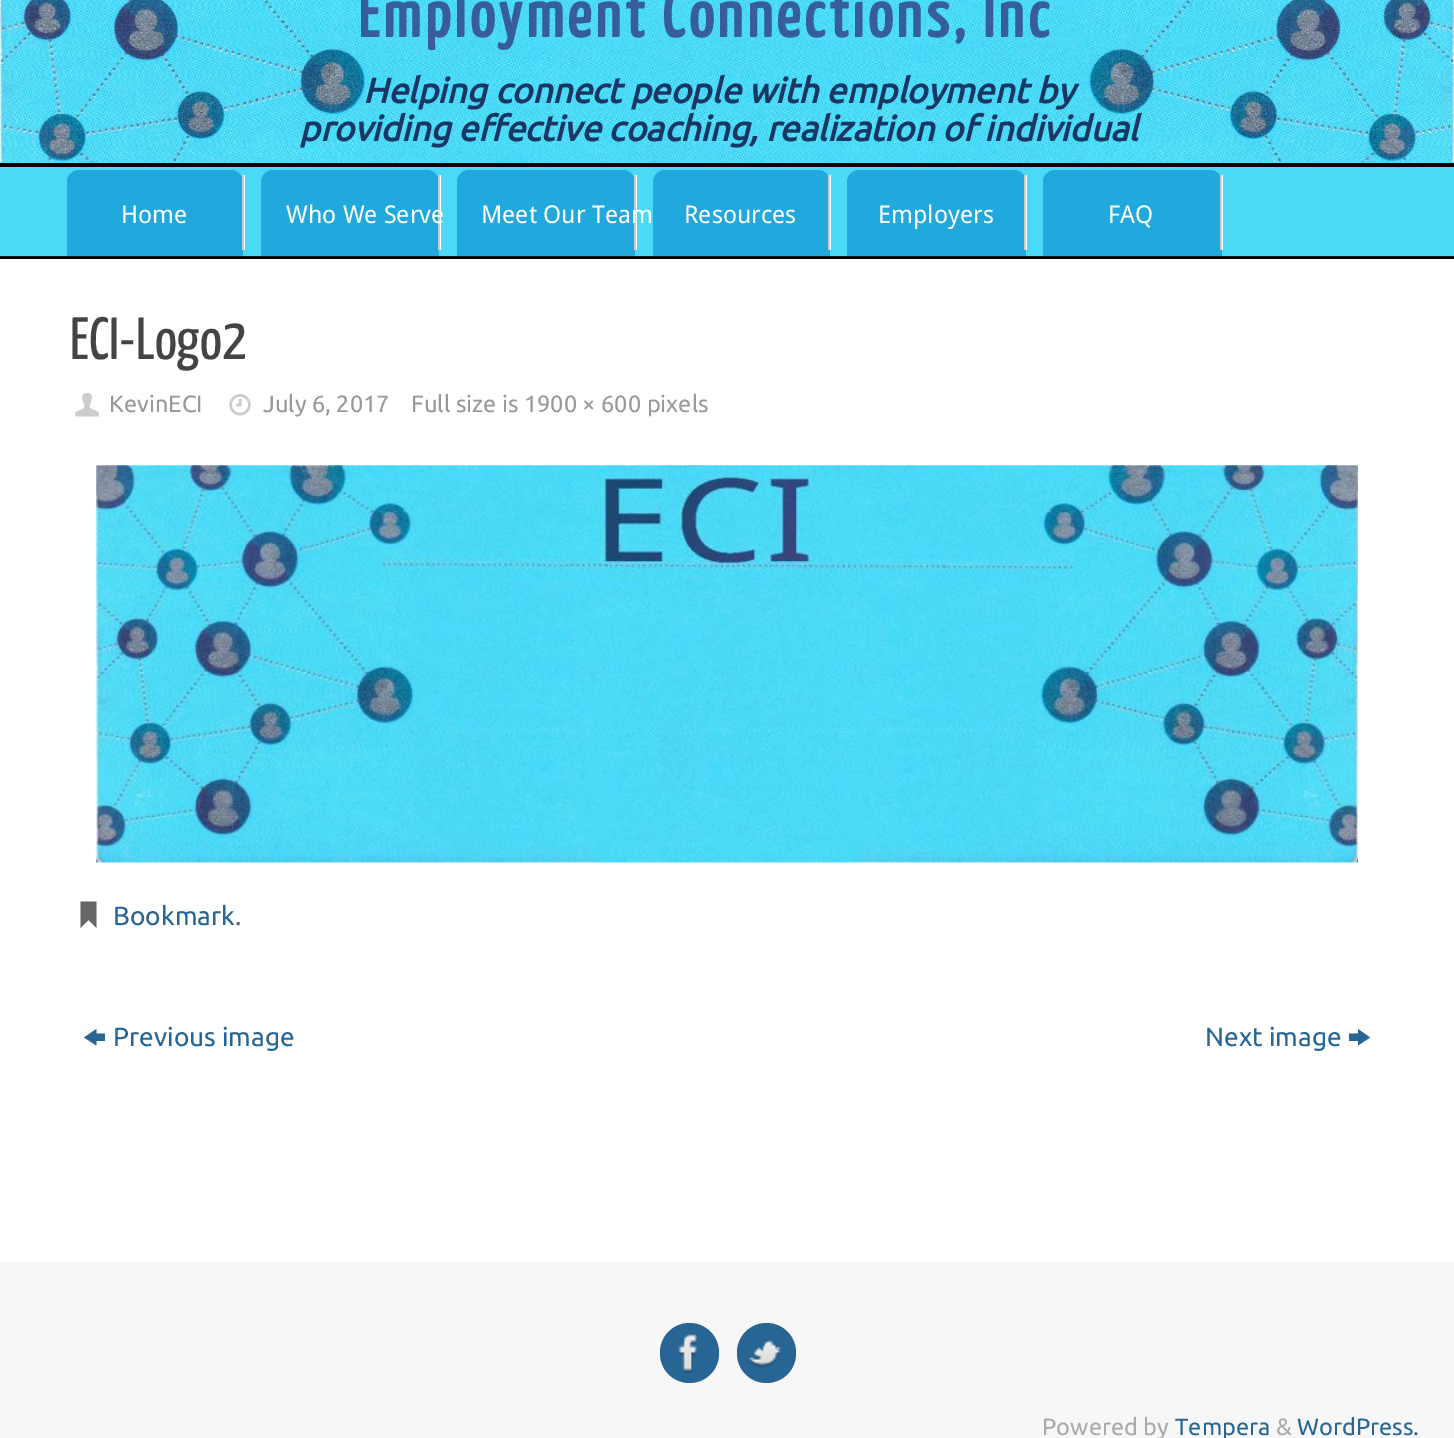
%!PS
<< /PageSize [1454 1438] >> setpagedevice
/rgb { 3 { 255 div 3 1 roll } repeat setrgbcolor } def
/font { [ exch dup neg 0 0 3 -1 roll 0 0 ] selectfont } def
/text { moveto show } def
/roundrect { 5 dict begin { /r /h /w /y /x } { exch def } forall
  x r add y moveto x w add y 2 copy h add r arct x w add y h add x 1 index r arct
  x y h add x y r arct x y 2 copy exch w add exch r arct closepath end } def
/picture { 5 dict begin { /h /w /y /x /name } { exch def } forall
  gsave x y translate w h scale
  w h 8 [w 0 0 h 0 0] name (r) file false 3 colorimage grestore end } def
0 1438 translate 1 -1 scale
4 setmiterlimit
23 23 23 rgb
0 0 1454 1438 rectfill
74 217 247 rgb
0 162 1454 94 rectfill
0 0 0 rgb
0 163 1454 4 rectfill
(img_01.rgb) 0 0 1454 163 picture
33 168 220 rgb
79 170 moveto 152 0 rlineto 6.5 0 12 5.5 12 12 rcurveto 0 74 rlineto -176 0 rlineto 0 -74 rlineto 0 -6.5 5.5 -12 12 -12 rcurveto closepath fill
255 255 255 rgb
244 175 1 75 rectfill
204 204 204 rgb
242 175 2 75 rectfill
33 168 220 rgb
273 170 moveto 154 0 rlineto 6.5 0 12 5.5 12 12 rcurveto 0 74 rlineto -178 0 rlineto 0 -74 rlineto 0 -6.5 5.5 -12 12 -12 rcurveto closepath fill
255 255 255 rgb
440 175 1 75 rectfill
204 204 204 rgb
438 175 2 75 rectfill
33 168 220 rgb
469 170 moveto 154 0 rlineto 6.5 0 12 5.5 12 12 rcurveto 0 74 rlineto -178 0 rlineto 0 -74 rlineto 0 -6.5 5.5 -12 12 -12 rcurveto closepath fill
255 255 255 rgb
636 175 1 75 rectfill
204 204 204 rgb
634 175 2 75 rectfill
33 168 220 rgb
665 170 moveto 153 0 rlineto 6.5 0 12 5.5 12 12 rcurveto 0 74 rlineto -177 0 rlineto 0 -74 rlineto 0 -6.5 5.5 -12 12 -12 rcurveto closepath fill
255 255 255 rgb
830 175 1 75 rectfill
204 204 204 rgb
828 175 2 75 rectfill
33 168 220 rgb
859 170 moveto 155 0 rlineto 6.5 0 12 5.5 12 12 rcurveto 0 74 rlineto -179 0 rlineto 0 -74 rlineto 0 -6.5 5.5 -12 12 -12 rcurveto closepath fill
255 255 255 rgb
1026 175 1 75 rectfill
204 204 204 rgb
1024 175 2 75 rectfill
33 168 220 rgb
1055 170 moveto 155 0 rlineto 6.5 0 12 5.5 12 12 rcurveto 0 74 rlineto -179 0 rlineto 0 -74 rlineto 0 -6.5 5.5 -12 12 -12 rcurveto closepath fill
255 255 255 rgb
1222 175 1 75 rectfill
204 204 204 rgb
1220 175 2 75 rectfill
255 255 255 rgb
0 259 1454 1003 rectfill
0 0 0 rgb
0 257 1454 2 rectfill
(img_02.rgb) 75 393 24 24 picture
(img_03.rgb) 229 394 22 22 picture
(img_04.rgb) 96 465 1262 398 picture
102 102 102 rgb
80.5 925.5 moveto 0 -24 rlineto 16 0 rlineto 0 26.5 rlineto -8 -8 rlineto -8 8 rlineto closepath fill
39 102 148 rgb
84 1037.5 moveto 12.5 -8.5 rlineto 0 4.5 rlineto 8.5 0 rlineto 0 7.5 rlineto -8.5 0 rlineto 0 4.5 rlineto closepath fill
1349 1041 moveto 0 -7.5 rlineto 9 0 rlineto 0 -4.5 rlineto 12 8.5 rlineto -12 8 rlineto 0 -4.5 rlineto closepath fill
247 247 247 rgb
0 1262 1454 176 rectfill
39 102 148 rgb
660 1323 59 60 29.5 roundrect fill
(img_05.rgb) 677 1334 21 40 picture
737 1323 59 60 29.5 roundrect fill
(img_06.rgb) 748 1340 33 28 picture
/YanoneKaffeesatz-Bold 66.5 font
55 93 156 rgb
358 37 moveto 4 0 (Employment Connections, Inc) ashow
/Ubuntu-BoldItalic 35 font
24 55 100 rgb
(Helping connect people with employment by) 363 103 text
(providing effective coaching, realization of individual) 299 141 text
/DroidSans-Regular 24.5 font
255 255 255 rgb
(Home) 121 223 text
(Who We Serve) 286 223 text
(Meet Our Team) 481 223 text
(Resources) 684 223 text
(Employers) 878 223 text
(FAQ) 1108 223 text
/YanoneKaffeesatz-Regular 59.5 font
68 68 68 rgb
(ECI-Logo2) 70 359 text
/Ubuntu-Regular 23.6 font
153 153 153 rgb
(KevinECI) 109 412 text
(July 6, 2017) 263 412 text
(Full size is 1900 × 600 pixels) 411 412 text
/Ubuntu-Regular 26.25 font
39 102 148 rgb
(Bookmark) 113 925 text
102 102 102 rgb
(.) 235 925 text
39 102 148 rgb
(Previous image) 113 1046 text
(Next image) 1205 1046 text
/Ubuntu-Regular 23.6 font
170 170 170 rgb
(Powered by) 1042 1435 text
39 102 148 rgb
(Tempera) 1175 1435 text
170 170 170 rgb
(&) 1276 1435 text
39 102 148 rgb
(WordPress.) 1297 1435 text
showpage
